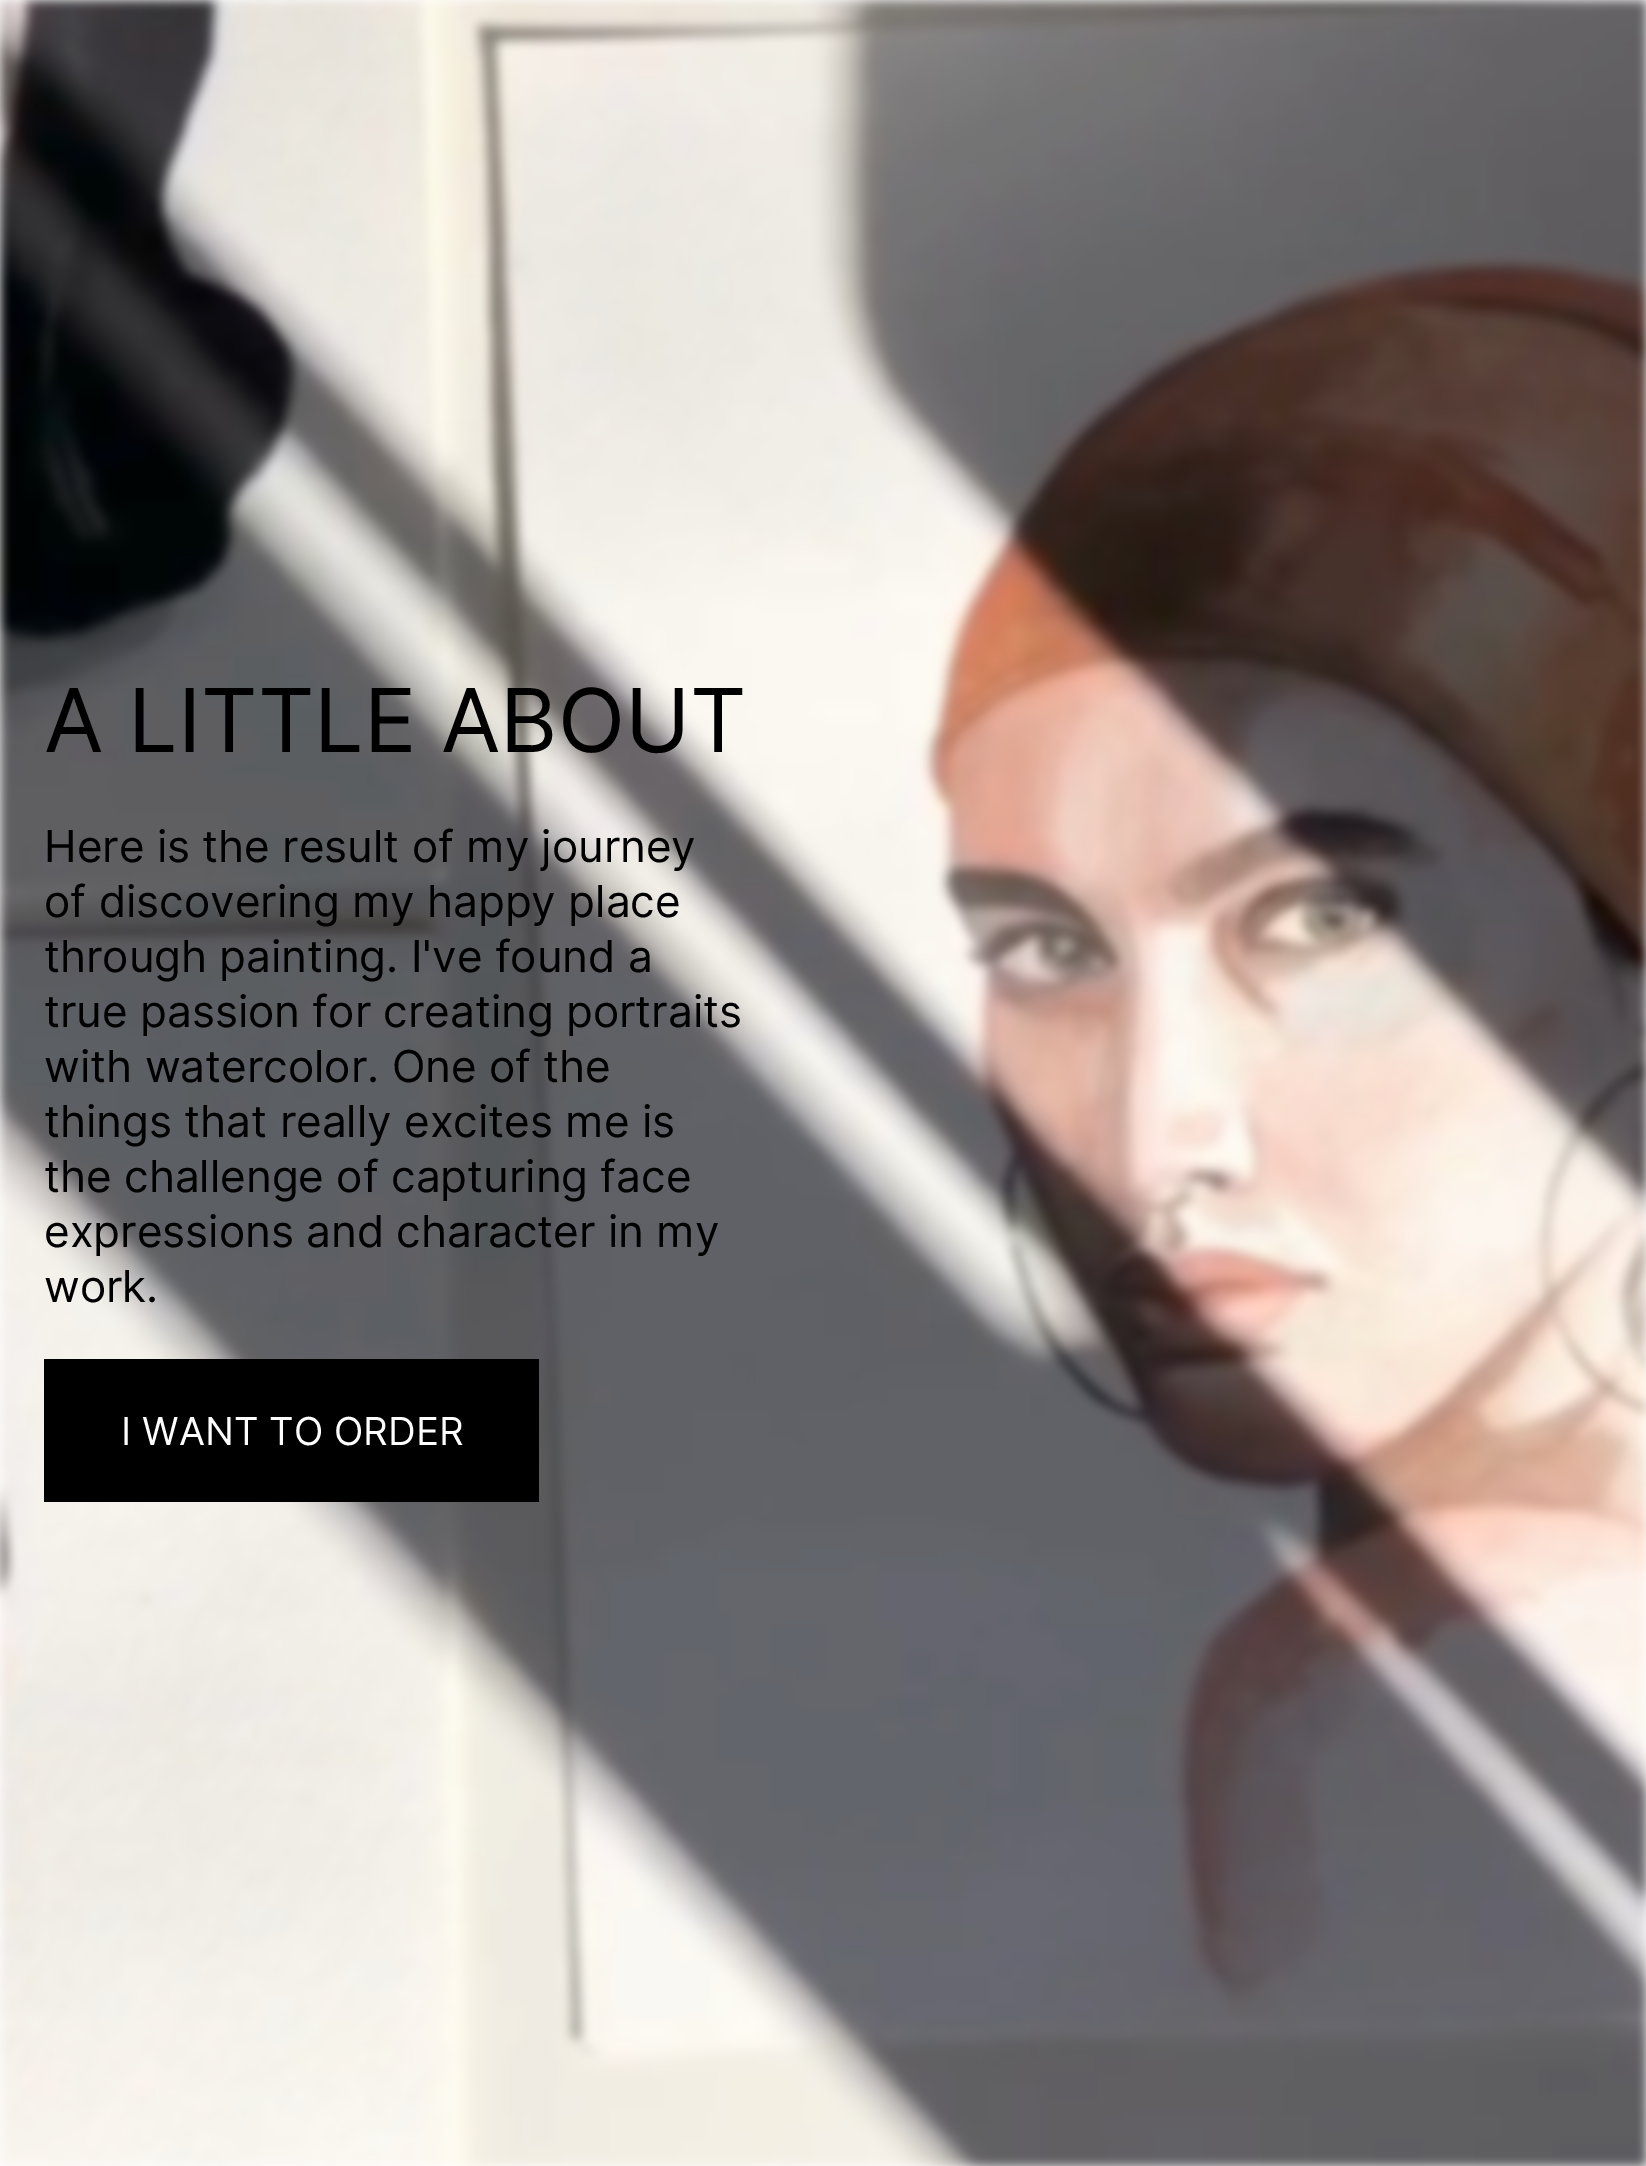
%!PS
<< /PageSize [1646 2166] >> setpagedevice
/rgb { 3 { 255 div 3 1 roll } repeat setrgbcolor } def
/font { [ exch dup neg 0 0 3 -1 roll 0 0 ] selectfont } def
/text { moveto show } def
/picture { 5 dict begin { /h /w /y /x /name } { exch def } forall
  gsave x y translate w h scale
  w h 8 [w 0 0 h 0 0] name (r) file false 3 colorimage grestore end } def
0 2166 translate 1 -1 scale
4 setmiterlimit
255 255 255 rgb
0 0 1646 2166 rectfill
(img_01.rgb) 0 0 1646 2166 picture
0 0 0 rgb
44 1359 495 143 rectfill
/Inter-Regular 88 font
(A LITTLE ABOUT) 44 752 text
/Inter-Regular 44 font
(Here is the result of my journey) 44 862 text
(of discovering my happy place) 44 917 text
(through painting. I've found a) 44 972 text
(true passion for creating portraits) 44 1027 text
(with watercolor. One of the) 44 1082 text
(things that really excites me is) 44 1137 text
(the challenge of capturing face) 44 1192 text
(expressions and character in my) 44 1247 text
(work.) 44 1302 text
/Inter-Regular 38.5 font
255 255 255 rgb
(I WANT TO ORDER) 121 1445 text
showpage
